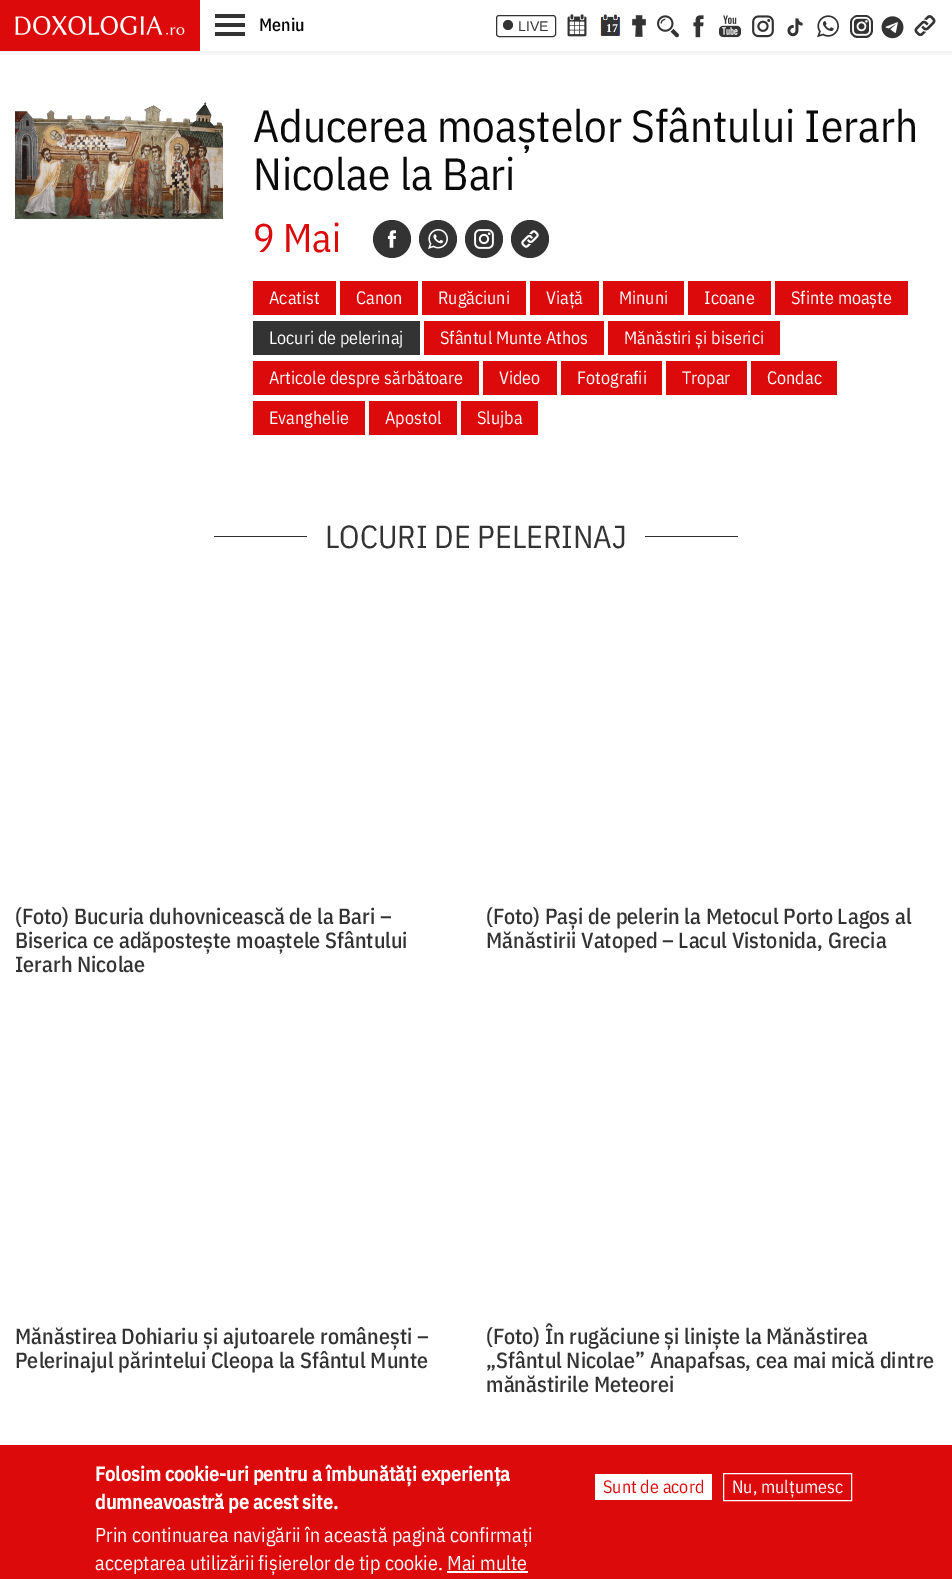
%!PS
<< /PageSize [952 1579] /PageUsesTransparency true >> setpagedevice
/rgb { 3 { 255 div 3 1 roll } repeat setrgbcolor } def
/font { [ exch dup neg 0 0 3 -1 roll 0 0 ] selectfont } def
/text { moveto show } def
/alpha { dup .setfillconstantalpha .setstrokeconstantalpha } def
/circle { newpath 0 360 arc closepath } def
/roundrect { 5 dict begin { /r /h /w /y /x } { exch def } forall
  x r add y moveto x w add y 2 copy h add r arct x w add y h add x 1 index r arct
  x y h add x y r arct x y 2 copy exch w add exch r arct closepath end } def
/shadow { 12 dict begin { /a /b /q /h /w /y /x } { exch def } forall gsave /was 0 def
  9 -2 -9 { dup b mul 4 div /e exch def 1 sub .425 mul 2.718 exch exp 1 add a .99 .min exch div /now exch def
    1 1 now sub 1 was sub div sub alpha /was now def
    w h .min e 2 mul add 0 gt { x e sub y e sub w e 2 mul add h e 2 mul add
      q e add b .6 mul add w h .min 2 div e add .min 0 .max roundrect fill } if } for grestore end } def
/picture { 5 dict begin { /h /w /y /x /name } { exch def } forall
  gsave x y translate w h scale
  w h 8 [w 0 0 h 0 0] name (r) file false 3 colorimage grestore end } def
0 .pushpdf14devicefilter
0 1579 translate 1 -1 scale
4 setmiterlimit
255 255 255 rgb
0 0 952 1579 rectfill
gsave
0 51 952 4 rectclip
0 0 0 rgb
0 0 952 51 0 5 0.1 shadow
grestore
220 10 10 rgb
0 0 200 51 rectfill
(img_01.rgb) 15 16 170 19 picture
51 51 51 rgb
215 14 30 4 rectfill
215 23 30 4 rectfill
215 32 30 4 rectfill
496.5 15.5 59 21 2.5 roundrect stroke
508 25 5 circle fill
(img_02.rgb) 567 14 20 23 picture
(img_03.rgb) 600 14 20 22 picture
(img_04.rgb) 632 15 14 22 picture
(img_05.rgb) 657 15 22 23 picture
(img_06.rgb) 693 15 11 23 picture
(img_07.rgb) 719 15 22 23 picture
(img_08.rgb) 752 15 22 23 picture
(img_09.rgb) 787 18 16 19 picture
(img_10.rgb) 817 15 22 23 picture
850 15 23 23 8 roundrect fill
(img_11.rgb) 852 16 19 20 picture
(img_12.rgb) 881 16 23 23 picture
(img_13.rgb) 914 15 22 22 picture
(img_14.rgb) 15 101 208 118 picture
392 239 19 circle fill
(img_15.rgb) 387 230 9 18 picture
438 239 19 circle fill
(img_16.rgb) 428 229 20 20 picture
484 239 19 circle fill
(img_17.rgb) 474 229 20 20 picture
530 239 19 circle fill
(img_18.rgb) 521 230 18 18 picture
220 10 10 rgb
253 281 83 34 rectfill
340 281 78 34 rectfill
422 281 104 34 rectfill
530 281 69 34 rectfill
603 281 81 34 rectfill
688 281 83 34 rectfill
775 281 133 34 rectfill
51 51 51 rgb
253 321 167 34 rectfill
220 10 10 rgb
424 321 180 34 rectfill
608 321 172 34 rectfill
253 361 226 34 rectfill
483 361 74 34 rectfill
561 361 101 34 rectfill
666 361 81 34 rectfill
751 361 86 34 rectfill
253 401 112 34 rectfill
369 401 88 34 rectfill
461 401 77 34 rectfill
44 47 52 rgb
214 536 93 1 rectfill
645 536 93 1 rectfill
220 10 10 rgb
0 1445 952 134 rectfill
255 255 255 rgb
447 1571 81 2 rectfill
595 1474 117 26 rectfill
723.5 1473.5 128 27 rectstroke
/IBMPlexSansCondensed-Medium 18 font
0 0 0 rgb
(Meniu) 259 31 text
/LiberationSans-Regular 14 font
51 51 51 rgb
(LIVE) 518 31 text
/LiberationSerif-Bold 12 font
255 255 255 rgb
(17) 606 32 text
/IBMPlexSansCondensed-Regular 45 font
10 10 10 rgb
(Aducerea moaștelor Sfântului Ierarh) 253 142 text
(Nicolae la Bari) 253 190 text
/IBMPlexSansCondensed-Regular 40 font
220 10 10 rgb
(9 Mai) 253 252 text
/IBMPlexSansCondensed-Regular 18 font
255 255 255 rgb
(Acatist) 269 304 text
(Canon) 356 304 text
(Rugăciuni) 438 304 text
(Viață) 546 304 text
(Minuni) 619 304 text
(Icoane) 704 304 text
(Sfinte moaște) 791 304 text
(Locuri de pelerinaj) 269 344 text
(Sfântul Munte Athos) 440 344 text
(Mănăstiri și biserici) 624 344 text
(Articole despre sărbătoare) 269 384 text
(Video) 499 384 text
(Fotografii) 577 384 text
(Tropar) 682 384 text
(Condac) 767 384 text
(Evanghelie) 269 424 text
(Apostol) 385 424 text
(Slujba) 477 424 text
/IBMPlexSansCondensed-Regular 32 font
51 51 51 rgb
(LOCURI DE PELERINAJ) 325 548 text
/IBMPlexSansCondensed-Medium 22 font
(\(Foto\) Bucuria duhovnicească de la Bari –) 15 924 text
(Biserica ce adăpostește moaștele Sfântului) 15 948 text
(Ierarh Nicolae) 15 972 text
(\(Foto\) Pași de pelerin la Metocul Porto Lagos al) 486 924 text
(Mănăstirii Vatoped – Lacul Vistonida, Grecia) 486 948 text
(Mănăstirea Dohiariu și ajutoarele românești –) 15 1344 text
(Pelerinajul părintelui Cleopa la Sfântul Munte) 15 1368 text
(\(Foto\) În rugăciune și liniște la Mănăstirea) 486 1344 text
(„Sfântul Nicolae” Anapafsas, cea mai mică dintre) 486 1368 text
(mănăstirile Meteorei) 486 1392 text
/IBMPlexSansCondensed-Bold 20 font
255 255 255 rgb
(Folosim cookie-uri pentru a îmbunătăți experiența) 95 1481 text
(dumneavoastră pe acest site.) 95 1509 text
/IBMPlexSansCondensed-Regular 20 font
(Prin continuarea navigării în această pagină confirmați) 95 1542 text
(acceptarea utilizării fișierelor de tip cookie. Mai multe) 95 1570 text
/IBMPlexSansCondensed-Regular 18 font
220 10 10 rgb
(Sunt de acord) 603 1493 text
255 255 255 rgb
(Nu, mulțumesc) 732 1493 text
.poppdf14devicefilter showpage
